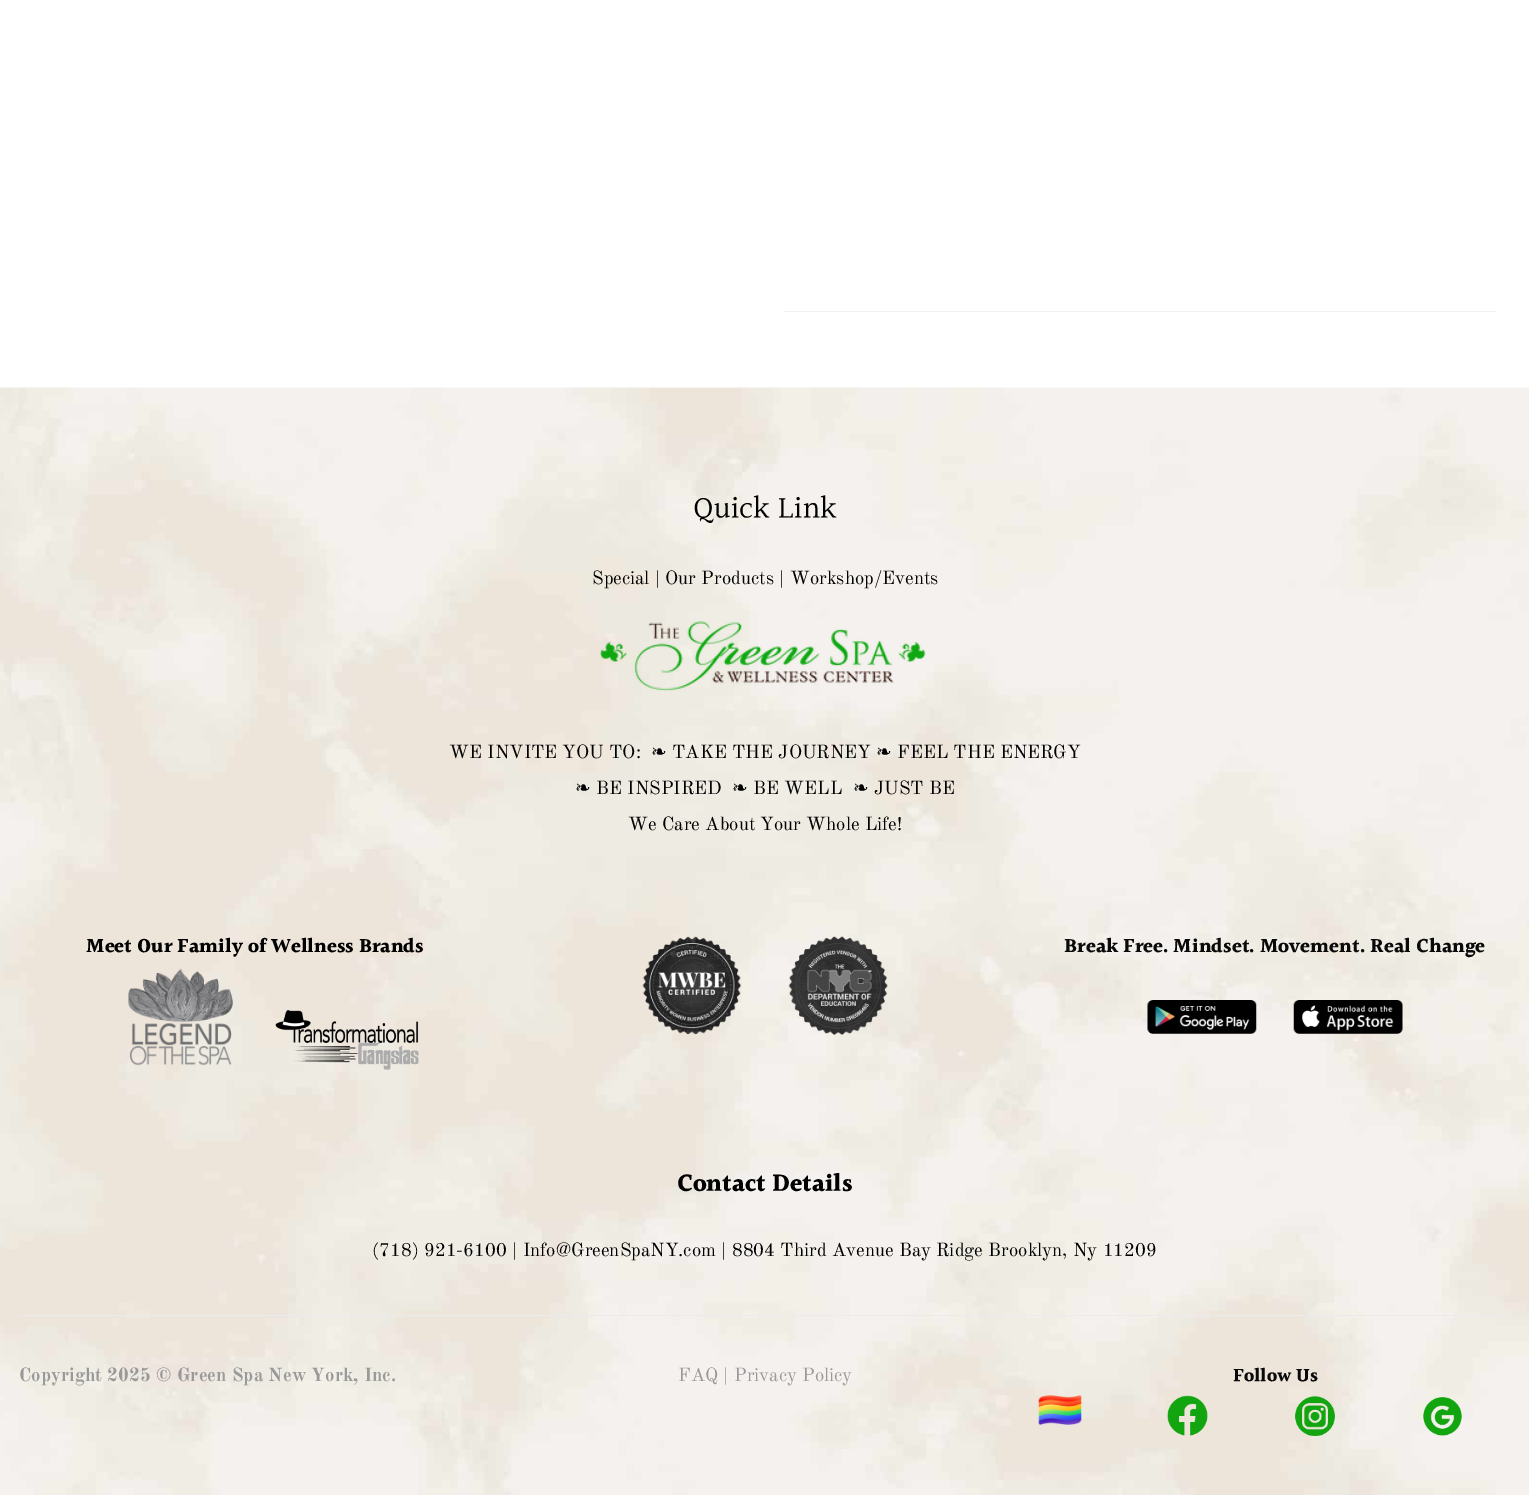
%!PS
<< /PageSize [1529 1495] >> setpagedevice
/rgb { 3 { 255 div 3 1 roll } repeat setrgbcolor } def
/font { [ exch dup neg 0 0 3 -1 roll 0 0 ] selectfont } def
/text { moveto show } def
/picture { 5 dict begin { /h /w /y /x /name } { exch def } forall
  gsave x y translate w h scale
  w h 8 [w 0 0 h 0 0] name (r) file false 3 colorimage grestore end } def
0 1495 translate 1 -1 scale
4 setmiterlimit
255 255 255 rgb
0 0 1529 1495 rectfill
241 241 241 rgb
784 311 712 1 rectfill
(img_01.rgb) 0 387 1529 1108 picture
(img_02.rgb) 600 621 326 70 picture
(img_03.rgb) 128 968 107 98 picture
(img_04.rgb) 275 1010 144 60 picture
(img_05.rgb) 642 936 100 99 picture
(img_06.rgb) 788 936 100 99 picture
(img_07.rgb) 1147 1000 110 34 picture
(img_08.rgb) 1293 1000 110 34 picture
235 235 235 rgb
19 1315 1492 1 rectfill
(img_09.rgb) 1038 1395 44 30 picture
(img_10.rgb) 1167 1395 41 41 picture
(img_11.rgb) 1295 1396 40 40 picture
(img_12.rgb) 1423 1397 39 39 picture
/Halant-Regular 31.25 font
0 0 0 rgb
(Quick Link) 693 519 text
/OldStandardTT-Regular 18.75 font
(Special | Our Products | Workshop/Events) 592 584 text
(WE INVITE YOU TO:) 449 758 text
/DejaVuSans-Regular 18.75 font
(❧) 651 758 text
/OldStandardTT-Regular 18.75 font
(TAKE THE JOURNEY) 672 758 text
/DejaVuSans-Regular 18.75 font
(❧) 876 758 text
/OldStandardTT-Regular 18.75 font
(FEEL THE ENERGY) 897 758 text
/DejaVuSans-Regular 18.75 font
(❧) 575 794 text
/OldStandardTT-Regular 18.75 font
(BE INSPIRED) 596 794 text
/DejaVuSans-Regular 18.75 font
(❧) 732 794 text
/OldStandardTT-Regular 18.75 font
(BE WELL) 753 794 text
/DejaVuSans-Regular 18.75 font
(❧) 853 794 text
/OldStandardTT-Regular 18.75 font
(JUST BE) 874 794 text
(We Care About Your Whole Life!) 628 830 text
/Halant-Bold 20 font
(Meet Our Family of Wellness Brands) 86 953 text
10 10 10 rgb
(Break Free. Mindset. Movement. Real Change) 1064 953 text
/Halant-Bold 25 font
0 0 0 rgb
(Contact Details) 677 1192 text
/OldStandardTT-Regular 18.75 font
(\(718\) 921-6100 | Info@GreenSpaNY.com | 8804 Third Avenue Bay Ridge Brooklyn, Ny 11209) 372 1256 text
/OldStandardTT-Bold 18.75 font
153 153 153 rgb
(Copyright 2025 © Green Spa New York, Inc.) 19 1381 text
/OldStandardTT-Regular 18.75 font
(FAQ | Privacy Policy) 678 1381 text
/Halant-Bold 18.75 font
10 10 10 rgb
(Follow Us) 1233 1382 text
showpage
